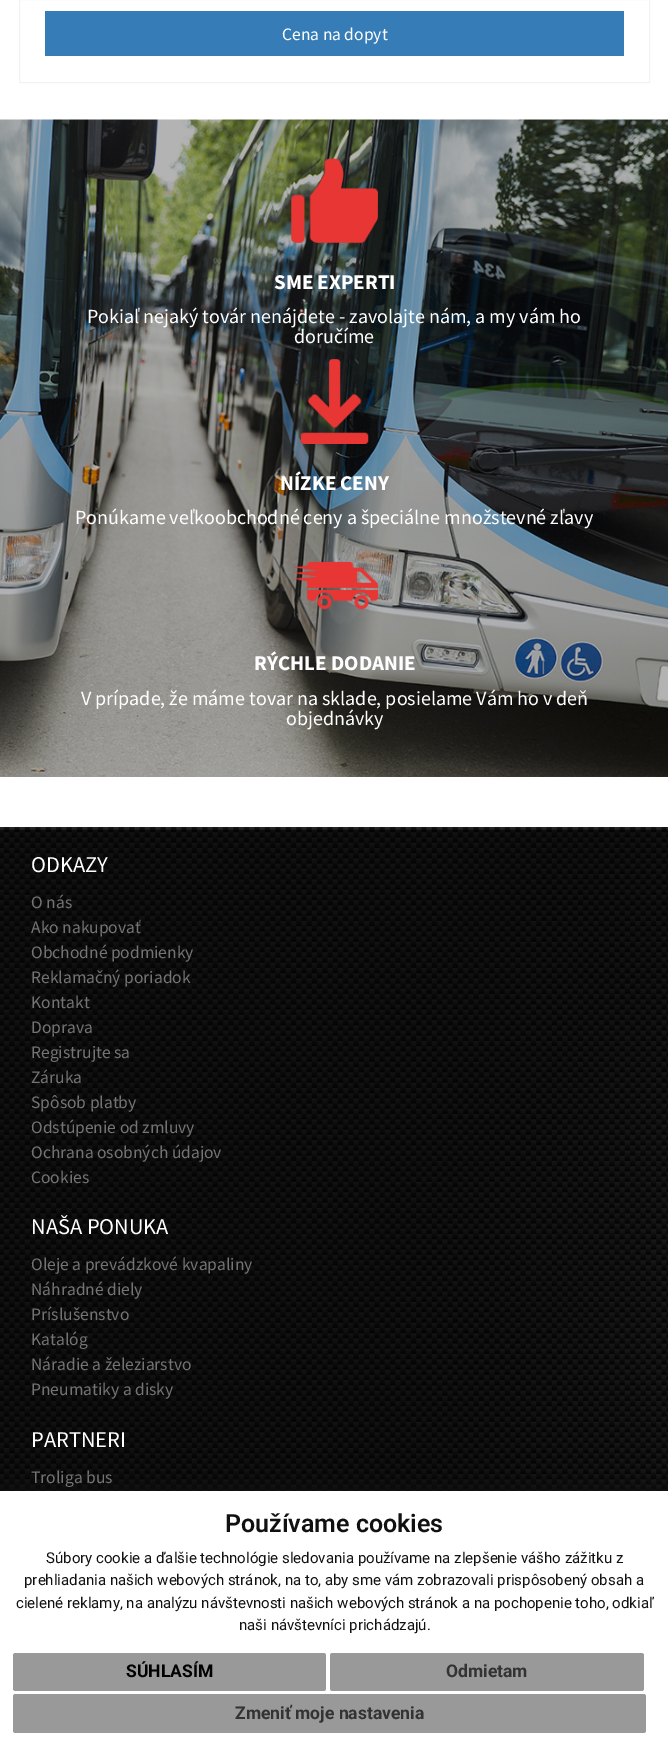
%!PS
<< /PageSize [668 1760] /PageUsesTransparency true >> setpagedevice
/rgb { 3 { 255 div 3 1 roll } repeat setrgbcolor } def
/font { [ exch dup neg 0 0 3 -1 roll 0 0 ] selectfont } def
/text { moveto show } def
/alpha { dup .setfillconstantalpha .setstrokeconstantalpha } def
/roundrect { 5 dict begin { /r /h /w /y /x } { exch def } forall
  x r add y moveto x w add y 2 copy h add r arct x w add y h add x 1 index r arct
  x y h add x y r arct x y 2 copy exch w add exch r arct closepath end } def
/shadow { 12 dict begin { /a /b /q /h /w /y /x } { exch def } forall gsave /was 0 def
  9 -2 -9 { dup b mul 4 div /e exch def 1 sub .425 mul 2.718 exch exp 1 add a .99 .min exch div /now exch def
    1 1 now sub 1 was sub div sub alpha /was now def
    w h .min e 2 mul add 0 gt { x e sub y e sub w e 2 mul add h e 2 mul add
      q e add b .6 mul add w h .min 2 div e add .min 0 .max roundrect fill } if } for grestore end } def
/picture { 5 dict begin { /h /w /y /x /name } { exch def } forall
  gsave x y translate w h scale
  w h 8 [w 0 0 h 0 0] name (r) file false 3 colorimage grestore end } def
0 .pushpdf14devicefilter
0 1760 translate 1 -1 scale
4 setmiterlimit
255 255 255 rgb
0 0 668 1760 rectfill
242 242 242 rgb
19.5 -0.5 630 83 rectstroke
54 124 183 rgb
45 11 579 45 rectfill
(img_01.rgb) 0 119 668 658 picture
(img_02.rgb) 291 158 87 85 picture
(img_03.rgb) 300 359 69 85 picture
(img_04.rgb) 293 561 85 49 picture
(img_05.rgb) 0 827 668 664 picture
17 17 17 rgb
0 1491 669 269 0 12.5 1 shadow
255 255 255 rgb
0 1491 668 269 rectfill
153 153 153 rgb
13 1653 313 38 2.5 roundrect fill
330 1653 314 38 2.5 roundrect fill
13 1694 633 39 2.5 roundrect fill
/SourceSansPro-Regular 17.5 font
255 255 255 rgb
(Cena na dopyt) 282 40 text
/SourceSansPro-Bold 21 font
(SME EXPERTI) 274 289 text
/SourceSansPro-Regular 20 font
(Pokiaľ nejaký továr nenájdete - zavolajte nám, a my vám ho) 87 323 text
(doručíme) 294 343 text
/SourceSansPro-Bold 21 font
(NÍZKE CENY) 280 490 text
/SourceSansPro-Regular 20 font
(Ponúkame veľkoobchodné ceny a špeciálne množstevné zľavy) 75 524 text
/SourceSansPro-Bold 21 font
(RÝCHLE DODANIE) 254 670 text
/SourceSansPro-Regular 20 font
(V prípade, že máme tovar na sklade, posielame Vám ho v deň) 81 705 text
(objednávky) 286 725 text
/SourceSansPro-Regular 22.5 font
(ODKAZY) 31 872 text
/SourceSansPro-Regular 17.5 font
117 115 115 rgb
(O nás) 31 908 text
(Ako nakupovať) 31 933 text
(Obchodné podmienky) 31 958 text
(Reklamačný poriadok) 31 983 text
(Kontakt) 31 1008 text
(Doprava) 31 1033 text
(Registrujte sa) 31 1058 text
(Záruka) 31 1083 text
(Spôsob platby) 31 1108 text
(Odstúpenie od zmluvy) 31 1133 text
(Ochrana osobných údajov) 31 1158 text
(Cookies) 31 1183 text
/SourceSansPro-Regular 22.5 font
255 255 255 rgb
(NAŠA PONUKA) 31 1234 text
/SourceSansPro-Regular 17.5 font
117 115 115 rgb
(Oleje a prevádzkové kvapaliny) 31 1270 text
(Náhradné diely) 31 1295 text
(Príslušenstvo) 31 1320 text
(Katalóg) 31 1345 text
(Náradie a železiarstvo) 31 1370 text
(Pneumatiky a disky) 31 1395 text
/SourceSansPro-Regular 22.5 font
255 255 255 rgb
(PARTNERI) 31 1447 text
/SourceSansPro-Regular 17.5 font
117 115 115 rgb
(Troliga bus) 31 1483 text
/Roboto-SemiBold 25 font
17 17 17 rgb
(Používame cookies) 225 1532 text
/Roboto-Regular 15 font
(Súbory cookie a ďalšie technológie sledovania používame na zlepšenie vášho zážitku z) 46 1563 text
(prehliadania našich webových stránok, na to, aby sme vám zobrazovali prispôsobený obsah a) 24 1585 text
(cielené reklamy, na analýzu návštevnosti našich webových stránok a na pochopenie toho, odkiaľ) 16 1608 text
(naši návštevníci prichádzajú.) 239 1630 text
/Roboto-Bold 17.5 font
0 0 0 rgb
(SÚHLASÍM) 126 1677 text
51 51 51 rgb
(Odmietam) 446 1677 text
(Zmeniť moje nastavenia) 235 1719 text
.poppdf14devicefilter showpage
